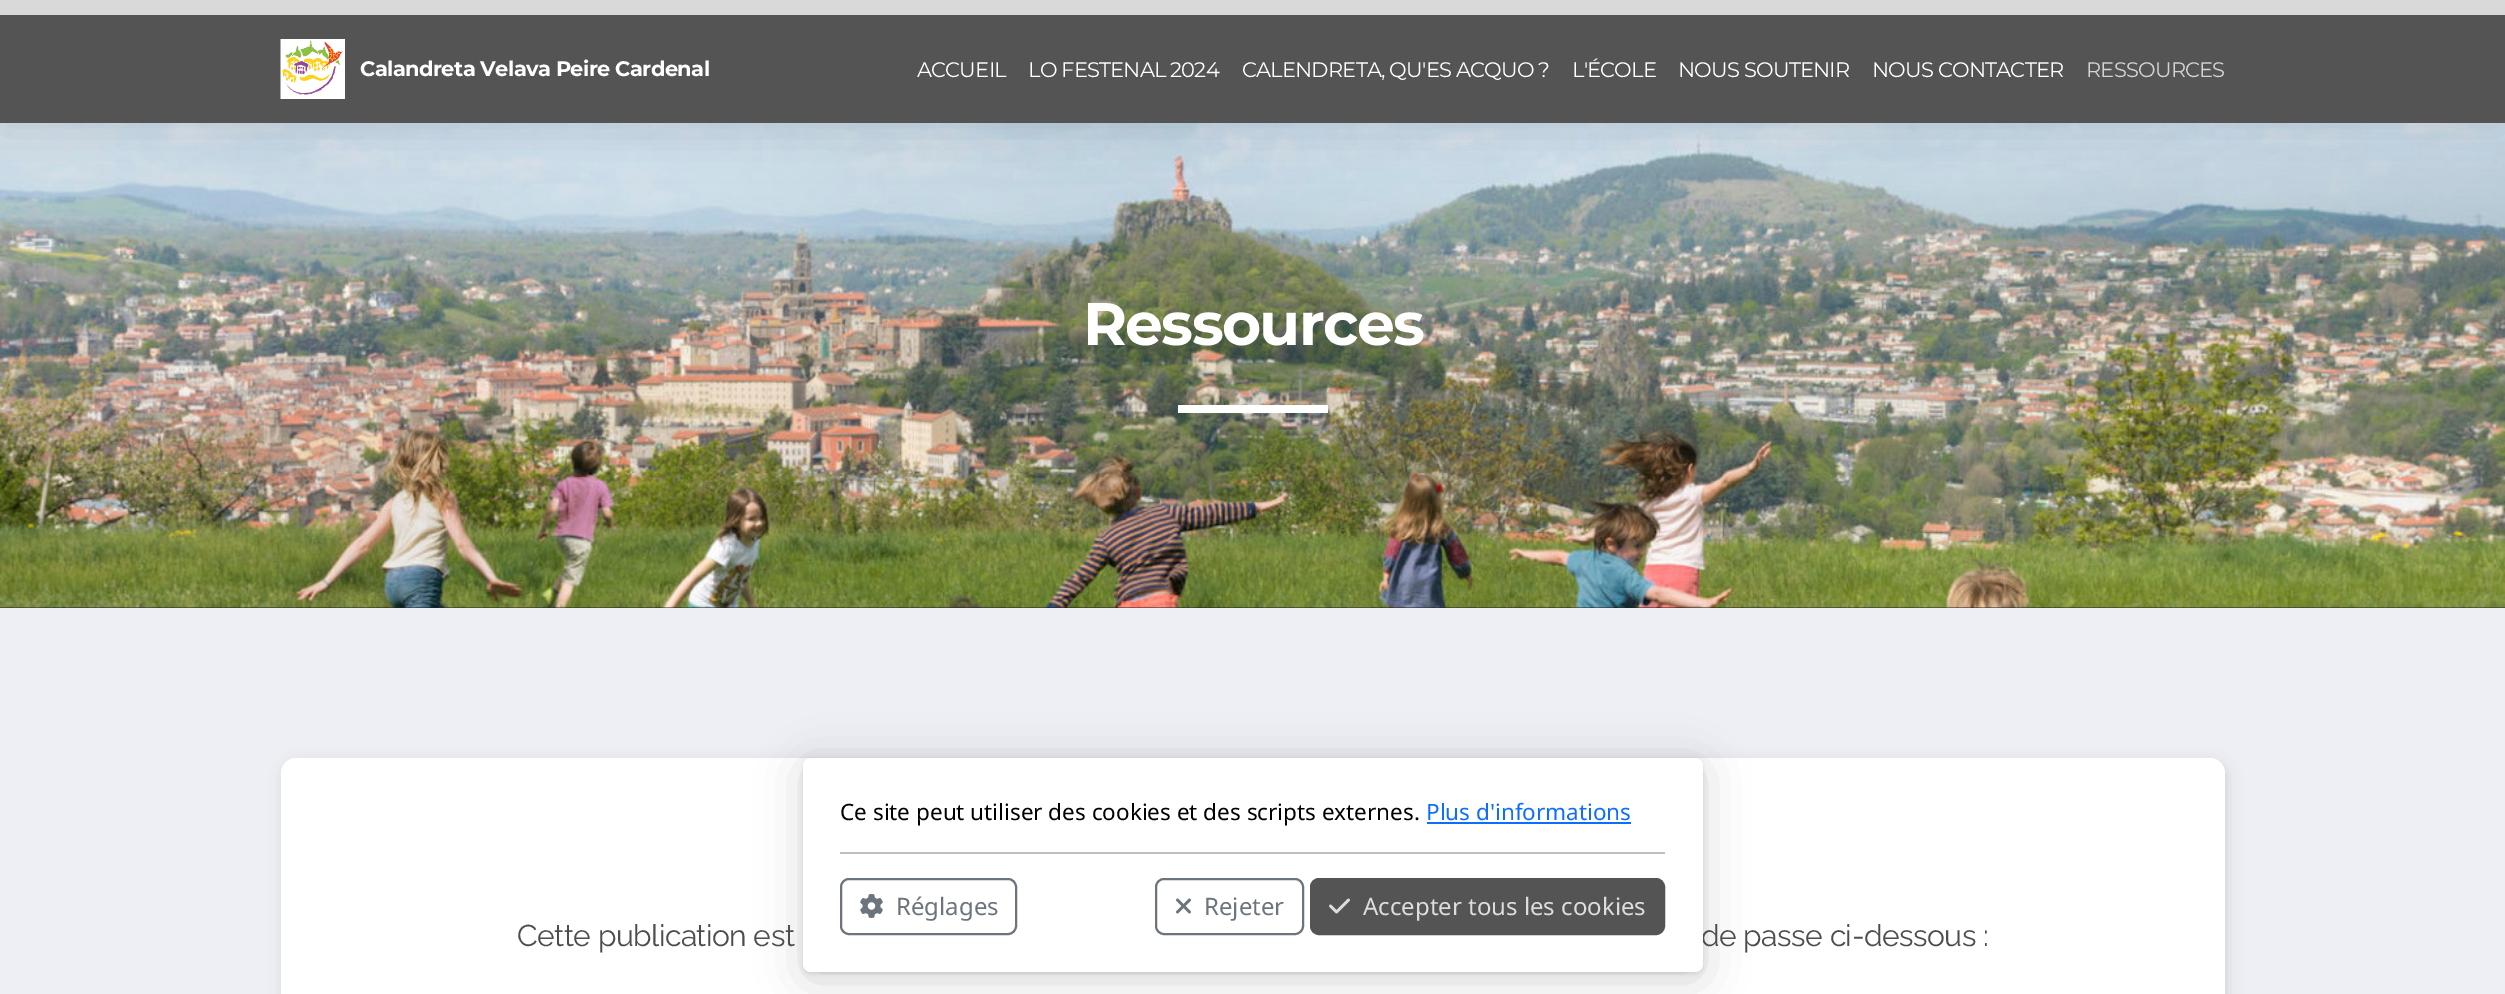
%!PS
<< /PageSize [2505 994] /PageUsesTransparency true >> setpagedevice
/rgb { 3 { 255 div 3 1 roll } repeat setrgbcolor } def
/font { [ exch dup neg 0 0 3 -1 roll 0 0 ] selectfont } def
/text { moveto show } def
/alpha { dup .setfillconstantalpha .setstrokeconstantalpha } def
/roundrect { 5 dict begin { /r /h /w /y /x } { exch def } forall
  x r add y moveto x w add y 2 copy h add r arct x w add y h add x 1 index r arct
  x y h add x y r arct x y 2 copy exch w add exch r arct closepath end } def
/shadow { 12 dict begin { /a /b /q /h /w /y /x } { exch def } forall gsave /was 0 def
  9 -2 -9 { dup b mul 4 div /e exch def 1 sub .425 mul 2.718 exch exp 1 add a .99 .min exch div /now exch def
    1 1 now sub 1 was sub div sub alpha /was now def
    w h .min e 2 mul add 0 gt { x e sub y e sub w e 2 mul add h e 2 mul add
      q e add b .6 mul add w h .min 2 div e add .min 0 .max roundrect fill } if } for grestore end } def
/picture { 5 dict begin { /h /w /y /x /name } { exch def } forall
  gsave x y translate w h scale
  w h 8 [w 0 0 h 0 0] name (r) file false 3 colorimage grestore end } def
0 .pushpdf14devicefilter
0 994 translate 1 -1 scale
4 setmiterlimit
34 34 34 rgb
0 0 2505 994 rectfill
(img_02.rgb) 0 123 2505 485 picture
0 0 0 rgb
0 11 2505 123 0 22 0.09 shadow
84 84 84 rgb
0 15 2505 108 rectfill
217 217 217 rgb
0 0 2505 15 rectfill
(img_01.rgb) 280 39 65 60 picture
255 255 255 rgb
1178 405 150 8 rectfill
238 239 245 rgb
0 608 2505 386 rectfill
0 0 0 rgb
282 762 1944 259 15 4 0.05 shadow
287 764 1938 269 12 9 0.1 shadow
255 255 255 rgb
281 758 1944 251 15 roundrect fill
0 0 0 rgb
803 765 900 215 8 22.5 0.16 shadow
803 759 900 215 8 2 0.1 shadow
/Montserrat-Thin 21 font
255 255 255 rgb
360 76 moveto -0.6 0 (Calandreta Velava Peire Cardenal) ashow
/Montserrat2-Thin 21 font
917 77 moveto -0.8 0 (ACCUEIL) ashow
1028 77 moveto -0.8 0 (LO FESTENAL 2024) ashow
1242 77 moveto -0.8 0 (CALENDRETA, QU'ES ACQUO ?) ashow
1572 77 moveto -0.8 0 (L'ÉCOLE) ashow
1678 77 moveto -0.8 0 (NOUS SOUTENIR) ashow
1872 77 moveto -0.8 0 (NOUS CONTACTER) ashow
212 212 212 rgb
2086 77 moveto -0.8 0 (RESSOURCES) ashow
/Montserrat-Thin 60 font
255 255 255 rgb
1083 345 moveto -1.75 0 (Ressources) ashow
/Raleway-Thin 30 font
77 77 77 rgb
517 946 moveto -0.5 0 (Cette publication est) ashow
1701 946 moveto -0.5 0 (de passe ci-dessous :) ashow
255 255 255 rgb
803 758 900 214 8 roundrect fill
/NotoSans-Regular 22.5 font
0 0 0 rgb
(Ce site peut utiliser des cookies et des scripts externes.) 840 820 text
13 110 253 rgb
(Plus d'informations) 1426 820 text
1427 822 204 2 rectfill
191 191 191 rgb
840 852 825 2 rectfill
108 117 125 rgb
2 setlinewidth
841 879 175 55 8 roundrect stroke
(img_03.rgb) 860 894 23 24 picture
/NotoSans-Regular 24 font
(Réglages) 896 915 text
1156 879 147 55 8 roundrect stroke
(img_04.rgb) 1176 898 15 16 picture
(Rejeter) 1204 915 text
84 84 84 rgb
1311 879 353 55 8 roundrect gsave fill grestore
stroke
(img_05.rgb) 1329 898 21 16 picture
221 221 221 rgb
(Accepter tous les cookies) 1363 915 text
.poppdf14devicefilter showpage
